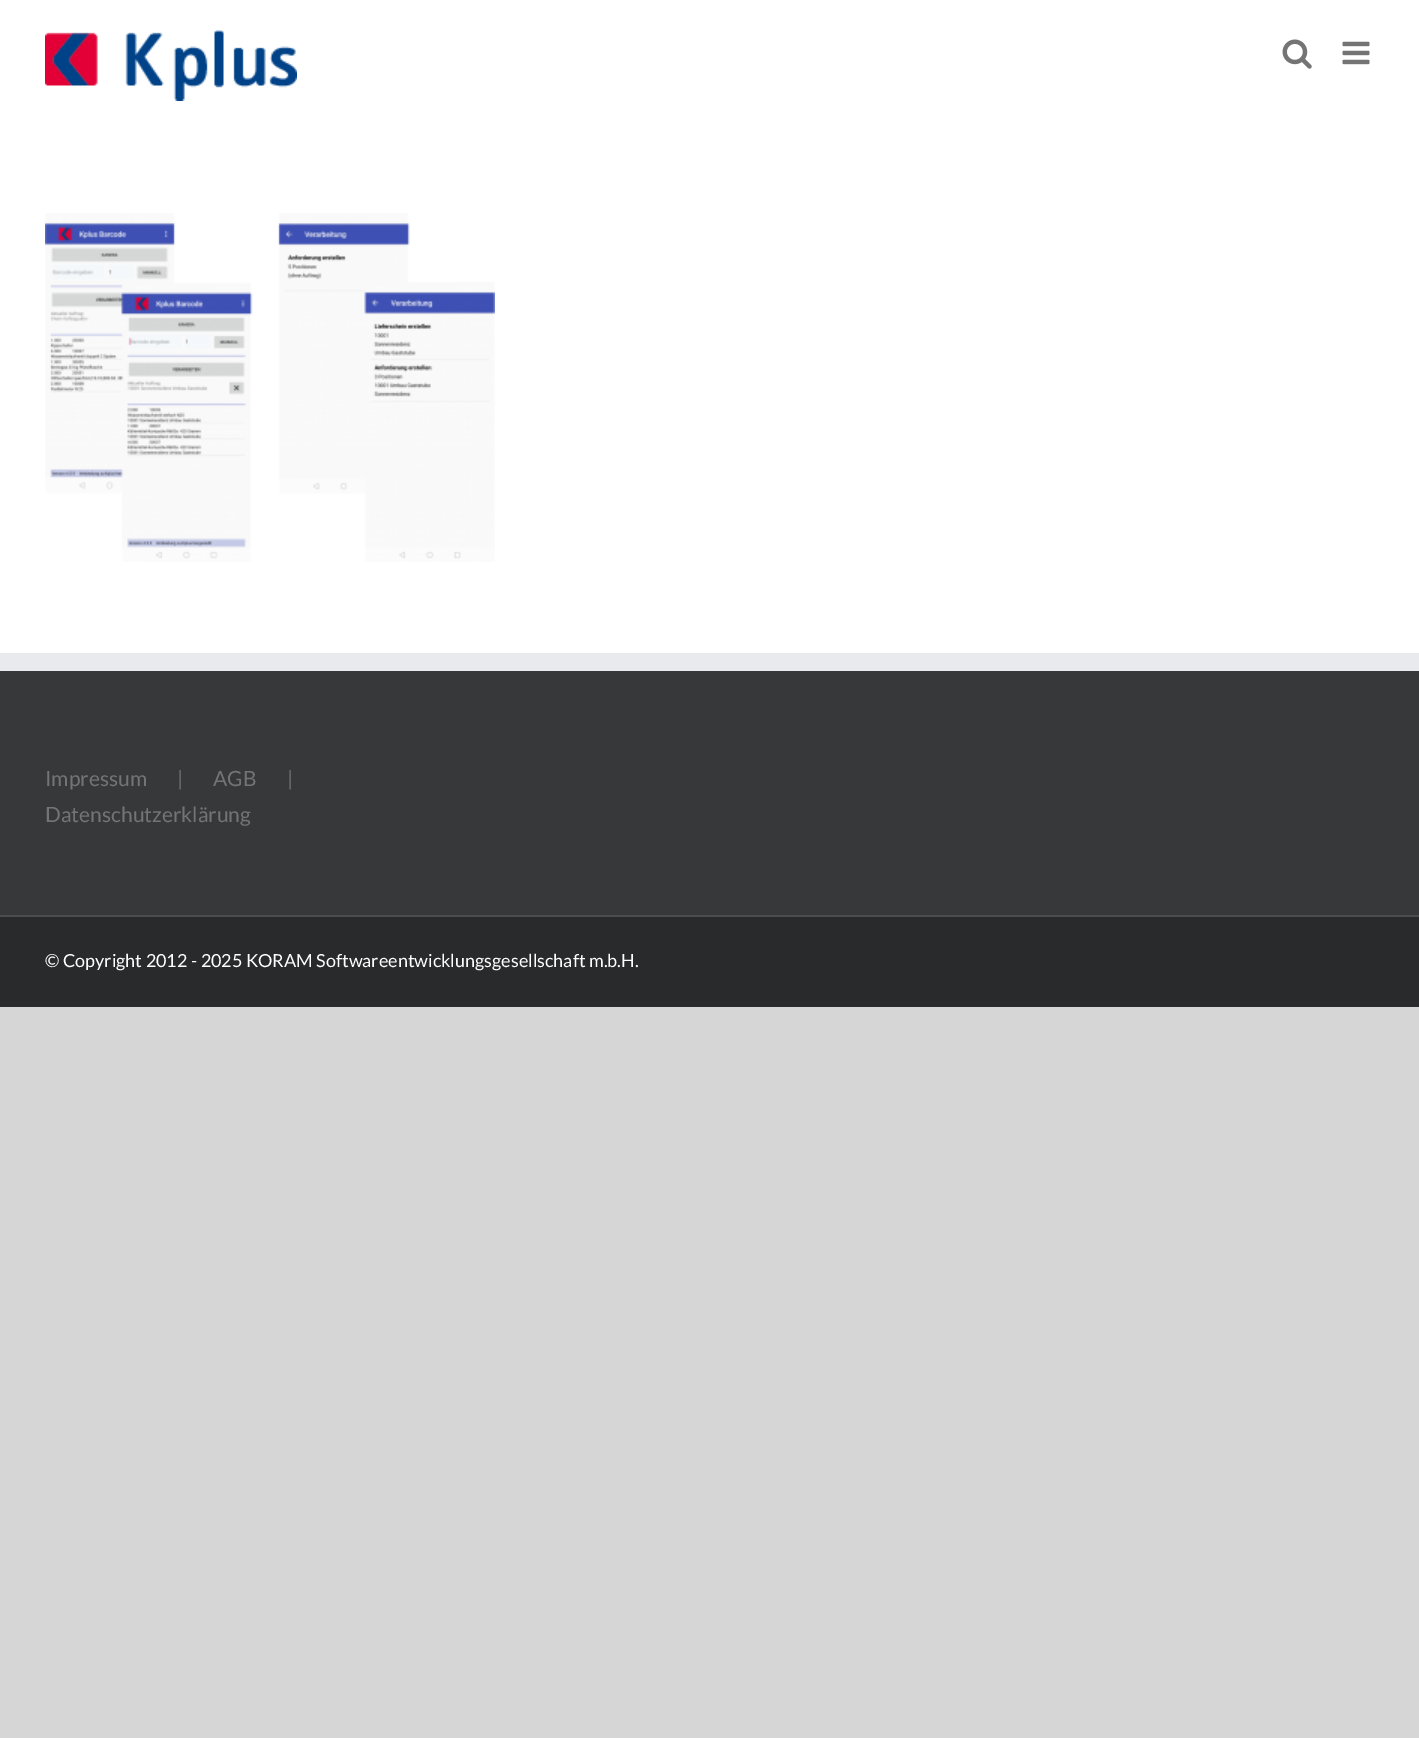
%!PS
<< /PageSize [1419 1738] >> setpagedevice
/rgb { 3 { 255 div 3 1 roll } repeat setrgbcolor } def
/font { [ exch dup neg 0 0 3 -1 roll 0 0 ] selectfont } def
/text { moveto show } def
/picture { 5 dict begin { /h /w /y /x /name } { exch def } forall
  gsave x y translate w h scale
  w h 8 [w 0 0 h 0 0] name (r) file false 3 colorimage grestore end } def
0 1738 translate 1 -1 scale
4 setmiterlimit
215 214 214 rgb
0 0 1419 1738 rectfill
255 255 255 rgb
0 0 1419 653 rectfill
(img_01.rgb) 45 30 252 71 picture
(img_02.rgb) 1282 39 30 30 picture
(img_03.rgb) 1342 41 28 24 picture
(img_04.rgb) 45 213 450 349 picture
54 56 57 rgb
0 671 1419 244 rectfill
233 234 238 rgb
0 653 1419 18 rectfill
40 42 43 rgb
0 917 1419 90 rectfill
75 76 77 rgb
0 915 1419 2 rectfill
/Lato-Regular 21 font
116 116 116 rgb
(Impressum) 45 786 text
(|) 177 786 text
(AGB) 213 786 text
(|) 287 786 text
(Datenschutzerklärung) 45 822 text
/Lato-Regular 18 font
255 255 255 rgb
(© Copyright 2012 - 2025 KORAM Softwareentwicklungsgesellschaft m.b.H.) 45 967 text
showpage
